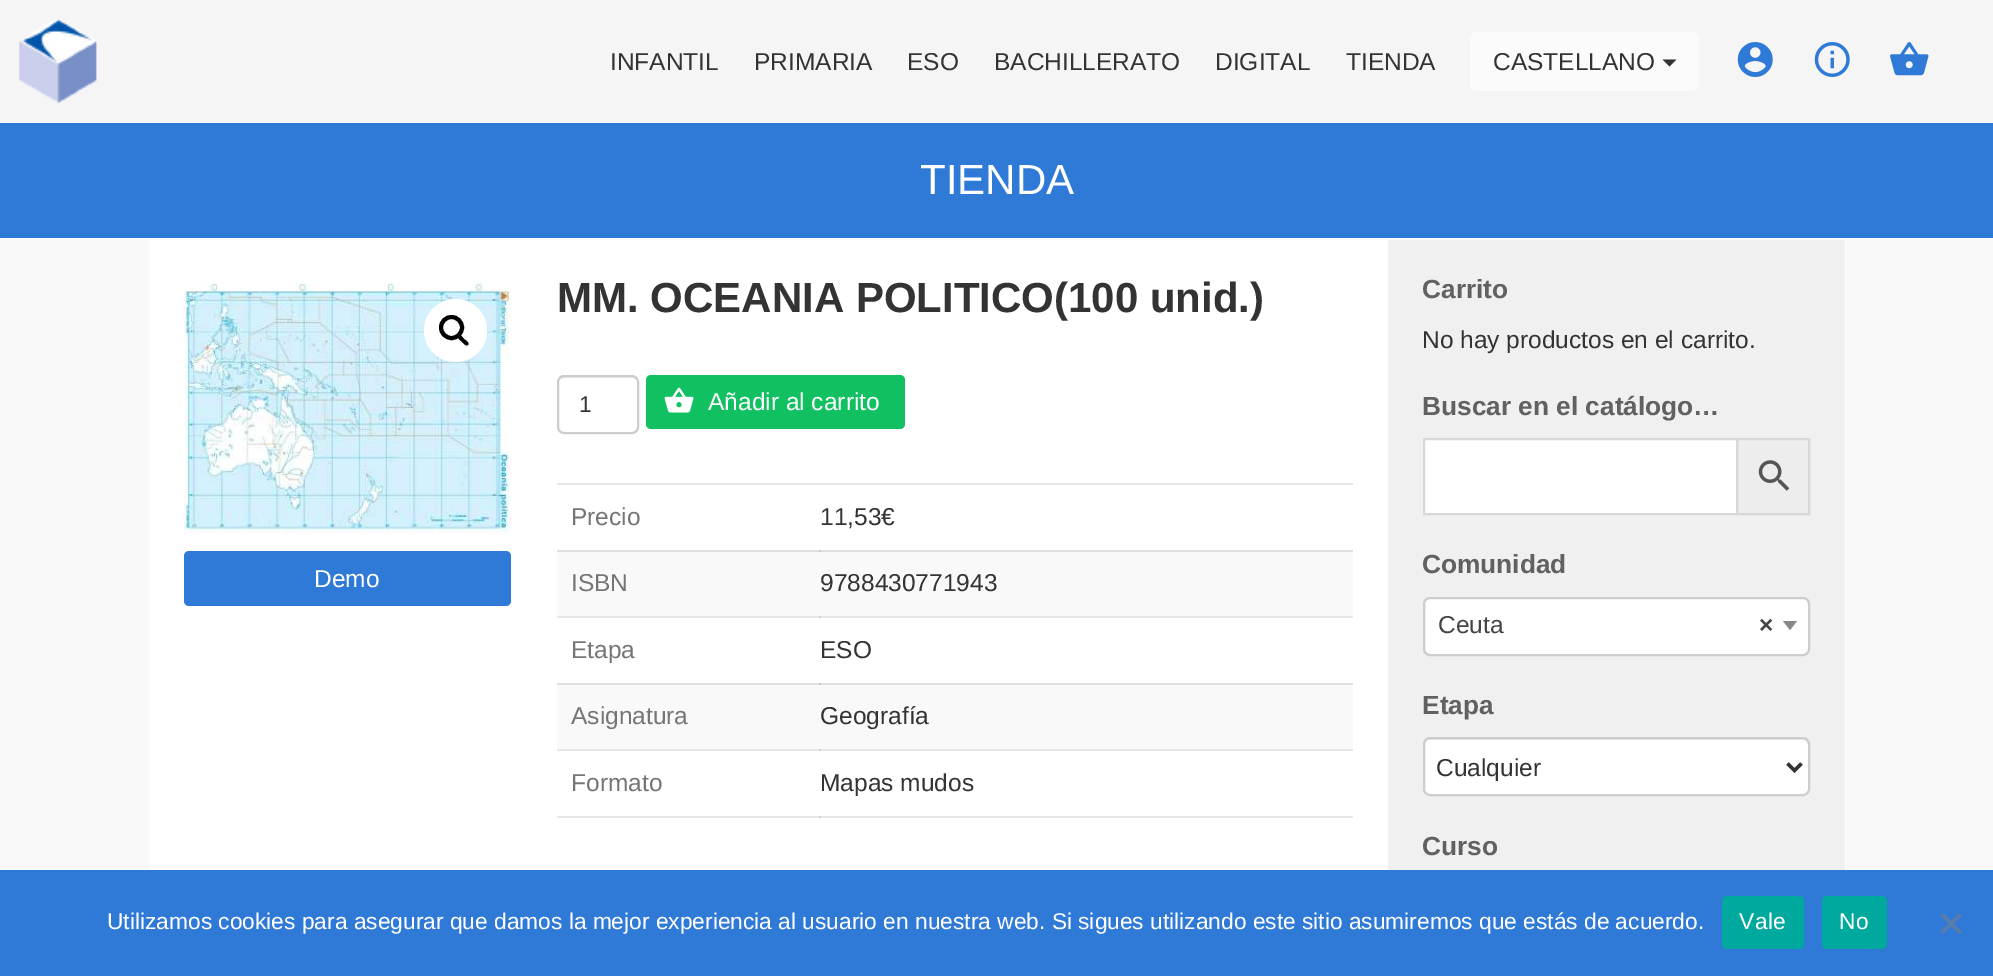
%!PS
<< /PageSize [1993 976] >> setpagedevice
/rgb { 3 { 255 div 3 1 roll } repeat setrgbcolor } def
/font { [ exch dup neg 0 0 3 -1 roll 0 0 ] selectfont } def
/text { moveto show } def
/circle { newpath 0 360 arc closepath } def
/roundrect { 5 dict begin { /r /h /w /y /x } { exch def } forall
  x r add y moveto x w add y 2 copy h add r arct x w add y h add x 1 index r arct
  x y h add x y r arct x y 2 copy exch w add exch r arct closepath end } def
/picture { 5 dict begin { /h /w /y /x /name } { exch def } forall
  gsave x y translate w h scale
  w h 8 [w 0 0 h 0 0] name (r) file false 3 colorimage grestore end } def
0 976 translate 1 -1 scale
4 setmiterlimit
249 249 249 rgb
0 0 1993 976 rectfill
245 245 245 rgb
0 0 1993 121 rectfill
(img_01.rgb) 19 18 78 86 picture
251 251 251 rgb
1470 32 229 59 7 roundrect fill
51 51 51 rgb
1662.5 59.5 moveto 14 0 rlineto -7 7 rlineto closepath fill
(img_02.rgb) 1737 42 36 35 picture
(img_03.rgb) 1814 42 36 35 picture
(img_04.rgb) 1890 42 39 34 picture
47 121 215 rgb
0 123 1993 115 rectfill
255 255 255 rgb
149 240 1697 630 rectfill
230 230 230 rgb
557 616 796 2 rectfill
557 749 796 2 rectfill
557 816 796 2 rectfill
(img_05.rgb) 184 282 327 252 picture
255 255 255 rgb
455.5 330.5 31.5 circle fill
0 0 0 rgb
4 setlinewidth
451.5 327.5 10.5 circle stroke
458 335 moveto 2 -2 5 3 6 4 rcurveto 1.5 1 6 4 4 6 rcurveto -2 2 -5 -2.5 -6.5 -3.5 rcurveto -1 -1 -5.5 -4.5 -3.5 -6.5 rcurveto closepath fill
47 122 215 rgb
184 551 327 55 5 roundrect fill
236 236 236 rgb
564 378 moveto 68 0 rlineto 3 0 5 2 5 5 rcurveto 0 -10 -8 -7 -17 -7 rcurveto -46 0 rlineto -8 0 -16 -3 -16 7 rcurveto 0 -3 3 -5 6 -5 rcurveto closepath fill
205 205 205 rgb
2 setlinewidth
558 376 80 57 6 roundrect stroke
17 192 97 rgb
646 375 259 54 5 roundrect fill
(img_06.rgb) 664 387 30 26 picture
230 230 230 rgb
557 483 796 2 rectfill
224 224 224 rgb
557 550 796 2 rectfill
202 202 202 rgb
819 550 2 2 rectfill
249 249 249 rgb
557 552 796 64 rectfill
207 207 207 rgb
819 616 2 2 rectfill
224 224 224 rgb
557 683 796 2 rectfill
202 202 202 rgb
819 683 2 2 rectfill
249 249 249 rgb
557 685 796 64 rectfill
207 207 207 rgb
819 749 2 2 rectfill
819 816 2 2 rectfill
240 240 240 rgb
1388 240 457 630 rectfill
237 237 237 rgb
1737 439 moveto 72 0 rlineto 0 75 rlineto -72 0 rlineto closepath gsave fill grestore
216 216 216 rgb
stroke
255 255 255 rgb
1424 439 moveto 313 0 rlineto 0 75 rlineto -313 0 rlineto closepath gsave fill grestore
216 216 216 rgb
stroke
(img_07.rgb) 1758 460 32 31 picture
255 255 255 rgb
1424 598 385 57 6 roundrect gsave fill grestore
205 205 205 rgb
stroke
136 136 136 rgb
1783 621 moveto 14 0 rlineto -7 9 rlineto closepath fill
255 255 255 rgb
1423 737 387 59 7 roundrect fill
236 236 236 rgb
1430 740 moveto 372 0 rlineto 3 0 6 3 6 6 rcurveto 0 -2 rlineto 0 -3 -2 -5 -5 -5 rcurveto -373 0 rlineto -2 0 -4 2 -5 4 rcurveto 1 -2 3 -3 5 -3 rcurveto closepath fill
205 205 205 rgb
1424 738 385 57 6 roundrect stroke
51 51 51 rgb
3.5 setlinewidth
1787.5 763.5 moveto 7 7 rlineto 7 -7 rlineto stroke
47 121 215 rgb
0 870 1993 106 rectfill
0 169 157 rgb
1722 896 82 53 5 roundrect fill
1822 896 65 53 5 roundrect fill
88 125 172 rgb
1959.5 913 moveto 2.5 2.5 rlineto -19 18.5 rlineto -2.5 -2.5 rlineto closepath fill
1940.5 915.5 moveto 2.5 -2.5 rlineto 19 18.5 rlineto -2.5 2.5 rlineto closepath fill
/LiberationSans-Regular 24.5 font
51 51 51 rgb
(INFANTIL) 610 70 text
(PRIMARIA) 754 70 text
(ESO) 907 70 text
(BACHILLERATO) 994 70 text
(DIGITAL) 1215 70 text
(TIENDA) 1346 70 text
(CASTELLANO) 1493 70 text
/LiberationSans-Regular 42 font
255 255 255 rgb
(TIENDA) 920 194 text
/LiberationSans-Regular 24.5 font
(Demo) 314 587 text
/LiberationSans-Bold 42 font
51 51 51 rgb
(MM. OCEANIA POLITICO\(100 unid.\)) 557 312 text
/LiberationSans-Regular 22.75 font
(1) 579 412 text
/LiberationSans-Regular 24.5 font
255 255 255 rgb
(Añadir al carrito) 708 410 text
117 117 117 rgb
(Precio) 571 525 text
51 51 51 rgb
(11,53€) 820 525 text
117 117 117 rgb
(ISBN) 571 591 text
51 51 51 rgb
(9788430771943) 820 591 text
117 117 117 rgb
(Etapa) 571 658 text
51 51 51 rgb
(ESO) 820 658 text
117 117 117 rgb
(Asignatura) 571 724 text
51 51 51 rgb
(Geografía) 820 724 text
117 117 117 rgb
(Formato) 571 791 text
51 51 51 rgb
(Mapas mudos) 820 791 text
/LiberationSans-Bold 26.25 font
97 97 97 rgb
(Carrito) 1422 298 text
/LiberationSans-Regular 24.5 font
51 51 51 rgb
(No hay productos en el carrito.) 1422 348 text
/LiberationSans-Bold 26.25 font
97 97 97 rgb
(Buscar en el catálogo…) 1422 415 text
(Comunidad) 1422 573 text
/LiberationSans-Regular 24.5 font
68 68 68 rgb
(Ceuta) 1438 633 text
/LiberationSans-Bold 24.5 font
(×) 1759 633 text
/LiberationSans-Bold 26.25 font
97 97 97 rgb
(Etapa) 1422 714 text
/LiberationSans-Regular 24.5 font
51 51 51 rgb
(Cualquier) 1436 776 text
/LiberationSans-Bold 26.25 font
97 97 97 rgb
(Curso) 1422 855 text
/LiberationSans-Regular 22.75 font
255 255 255 rgb
(Utilizamos cookies para asegurar que damos la mejor experiencia al usuario en nuestra web. Si sigues utilizando este sitio asumiremos que estás de acuerdo.) 107 929 text
1739 929 moveto 0.5 0 (Vale) ashow
1839 929 moveto 0.5 0 (No) ashow
showpage
